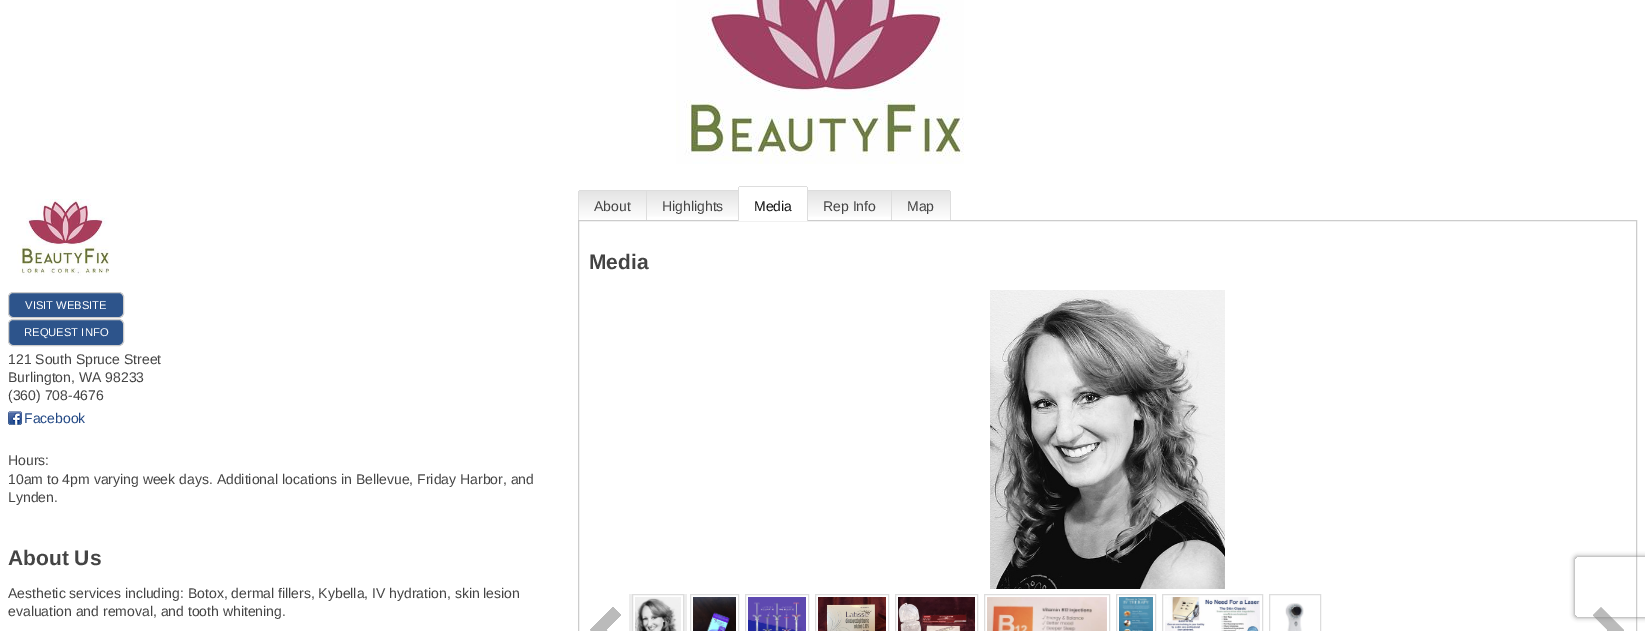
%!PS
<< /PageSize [1645 631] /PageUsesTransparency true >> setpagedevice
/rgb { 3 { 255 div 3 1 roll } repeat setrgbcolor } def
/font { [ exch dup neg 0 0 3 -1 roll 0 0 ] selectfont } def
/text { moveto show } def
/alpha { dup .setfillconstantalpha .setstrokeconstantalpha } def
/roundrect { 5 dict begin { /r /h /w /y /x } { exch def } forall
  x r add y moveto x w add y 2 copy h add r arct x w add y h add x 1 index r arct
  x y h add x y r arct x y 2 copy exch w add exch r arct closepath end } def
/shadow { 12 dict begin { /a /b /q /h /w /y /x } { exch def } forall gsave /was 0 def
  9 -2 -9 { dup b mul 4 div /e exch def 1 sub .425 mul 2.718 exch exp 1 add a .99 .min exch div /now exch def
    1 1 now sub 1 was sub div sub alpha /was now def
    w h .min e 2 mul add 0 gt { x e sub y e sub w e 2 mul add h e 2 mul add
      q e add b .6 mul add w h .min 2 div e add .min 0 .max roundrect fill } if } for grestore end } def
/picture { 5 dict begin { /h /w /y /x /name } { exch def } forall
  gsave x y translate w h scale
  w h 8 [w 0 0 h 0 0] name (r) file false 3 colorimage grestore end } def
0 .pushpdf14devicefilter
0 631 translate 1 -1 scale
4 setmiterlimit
255 255 255 rgb
0 0 1645 631 rectfill
(img_01.rgb) 676 0 288 164 picture
gsave 580 191 moveto 66 0 rlineto 0 29 rlineto -67 0 rlineto 0 -28 rlineto 0 -0.5 0.5 -1 1 -1 rcurveto closepath clip newpath
<< /ShadingType 2 /ColorSpace /DeviceRGB /Coords [613 191 613 220] /Extend [true true] /Function << /FunctionType 2 /Domain [0 1] /C0 [0.894 0.894 0.894] /C1 [1 1 1] /N 1 >> >> shfill grestore
221 221 221 rgb
579 190 160 1 rectfill
646 190 1 30 rectfill
578 191 1 29 rectfill
gsave 647 191 moveto 91 0 rlineto 0 26 rlineto -91 0 rlineto closepath clip newpath
<< /ShadingType 2 /ColorSpace /DeviceRGB /Coords [693 191 693 220] /Extend [true true] /Function << /FunctionType 2 /Domain [0 1] /C0 [0.894 0.894 0.894] /C1 [1 1 1] /N 1 >> >> shfill grestore
204 204 204 rgb
578.5 220.5 1058 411 rectstroke
255 255 255 rgb
740 187 moveto 66 0 rlineto 0.5 0 1 0.5 1 1 rcurveto 0 33 rlineto -68 0 rlineto 0 -33 rlineto 0 -0.5 0.5 -1 1 -1 rcurveto closepath fill
221 221 221 rgb
739 186 68 1 rectfill
807 187 1 34 rectfill
738 187 1 34 rectfill
gsave 808 191 moveto 83 0 rlineto 0 26 rlineto -83 0 rlineto closepath clip newpath
<< /ShadingType 2 /ColorSpace /DeviceRGB /Coords [850 191 850 220] /Extend [true true] /Function << /FunctionType 2 /Domain [0 1] /C0 [0.894 0.894 0.894] /C1 [1 1 1] /N 1 >> >> shfill grestore
808 190 142 1 rectfill
891 190 1 30 rectfill
gsave 892 191 moveto 57 0 rlineto 0.5 0 1 0.5 1 1 rcurveto 0 28 rlineto -58 0 rlineto closepath clip newpath
<< /ShadingType 2 /ColorSpace /DeviceRGB /Coords [921 191 921 220] /Extend [true true] /Function << /FunctionType 2 /Domain [0 1] /C0 [0.894 0.894 0.894] /C1 [1 1 1] /N 1 >> >> shfill grestore
950 191 1 29 rectfill
(img_02.rgb) 990 290 235 299 picture
(img_03.rgb) 590 607 31 24 picture
237 237 237 rgb
629 594 58 37 rectfill
255 255 255 rgb
632.5 594.5 moveto 51 0 rlineto 0 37 rlineto -51 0 rlineto closepath gsave fill grestore
221 221 221 rgb
stroke
(img_04.rgb) 635 597 46 34 picture
690.5 594.5 48 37 rectstroke
(img_05.rgb) 693 597 43 34 picture
745.5 594.5 63 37 rectstroke
(img_06.rgb) 748 597 58 34 picture
815.5 594.5 73 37 rectstroke
(img_07.rgb) 818 597 68 34 picture
895.5 594.5 82 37 rectstroke
(img_08.rgb) 898 597 77 34 picture
984.5 594.5 125 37 rectstroke
(img_09.rgb) 987 597 120 34 picture
1116.5 594.5 39 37 rectstroke
(img_10.rgb) 1119 597 34 34 picture
1162.5 594.5 100 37 rectstroke
(img_11.rgb) 1165 597 95 34 picture
1269.5 594.5 51 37 rectstroke
(img_12.rgb) 1285 603 19 28 picture
(img_13.rgb) 1593 607 31 24 picture
(img_14.rgb) 17 199 93 77 picture
45 84 139 rgb
8.5 292.5 115 25 4.5 roundrect gsave fill grestore
204 204 204 rgb
stroke
45 84 139 rgb
8.5 319.5 115 26 4.5 roundrect gsave fill grestore
204 204 204 rgb
stroke
(img_15.rgb) 8 411 14 14 picture
gsave
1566 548 moveto 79 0 rlineto 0 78 rlineto -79 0 rlineto closepath 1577 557 moveto 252 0 rlineto 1 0 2 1 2 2 rcurveto 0 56 rlineto 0 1 -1 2 -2 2 rcurveto -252 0 rlineto -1 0 -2 -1 -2 -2 rcurveto 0 -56 rlineto 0 -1 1 -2 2 -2 rcurveto closepath eoclip newpath
128 128 128 rgb
1575 557 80 60 2 2.5 1 shadow
grestore
/LiberationSans-Regular 14 font
68 68 68 rgb
(About) 594 211 text
(Highlights) 662 211 text
17 17 17 rgb
(Media) 754 211 text
68 68 68 rgb
(Rep Info) 823 211 text
(Map) 907 211 text
/LiberationSans-Bold 21 font
(Media) 589 269 text
/LiberationSans-Regular 11.25 font
255 255 255 rgb
(VISIT WEBSITE) 25 309 text
(REQUEST INFO) 24 336 text
/LiberationSans-Regular 14 font
68 68 68 rgb
(121 South Spruce Street) 8 364 text
(Burlington, WA 98233) 8 382 text
(\(360\) 708-4676) 8 400 text
34 72 132 rgb
(Facebook) 24 423 text
68 68 68 rgb
(Hours:) 8 465 text
(10am to 4pm varying week days. Additional locations in Bellevue, Friday Harbor, and) 8 484 text
(Lynden.) 8 502 text
/LiberationSans-Bold 21 font
(About Us) 8 565 text
/LiberationSans-Regular 14 font
(Aesthetic services including: Botox, dermal fillers, Kybella, IV hydration, skin lesion) 8 598 text
(evaluation and removal, and tooth whitening.) 8 616 text
.poppdf14devicefilter showpage
